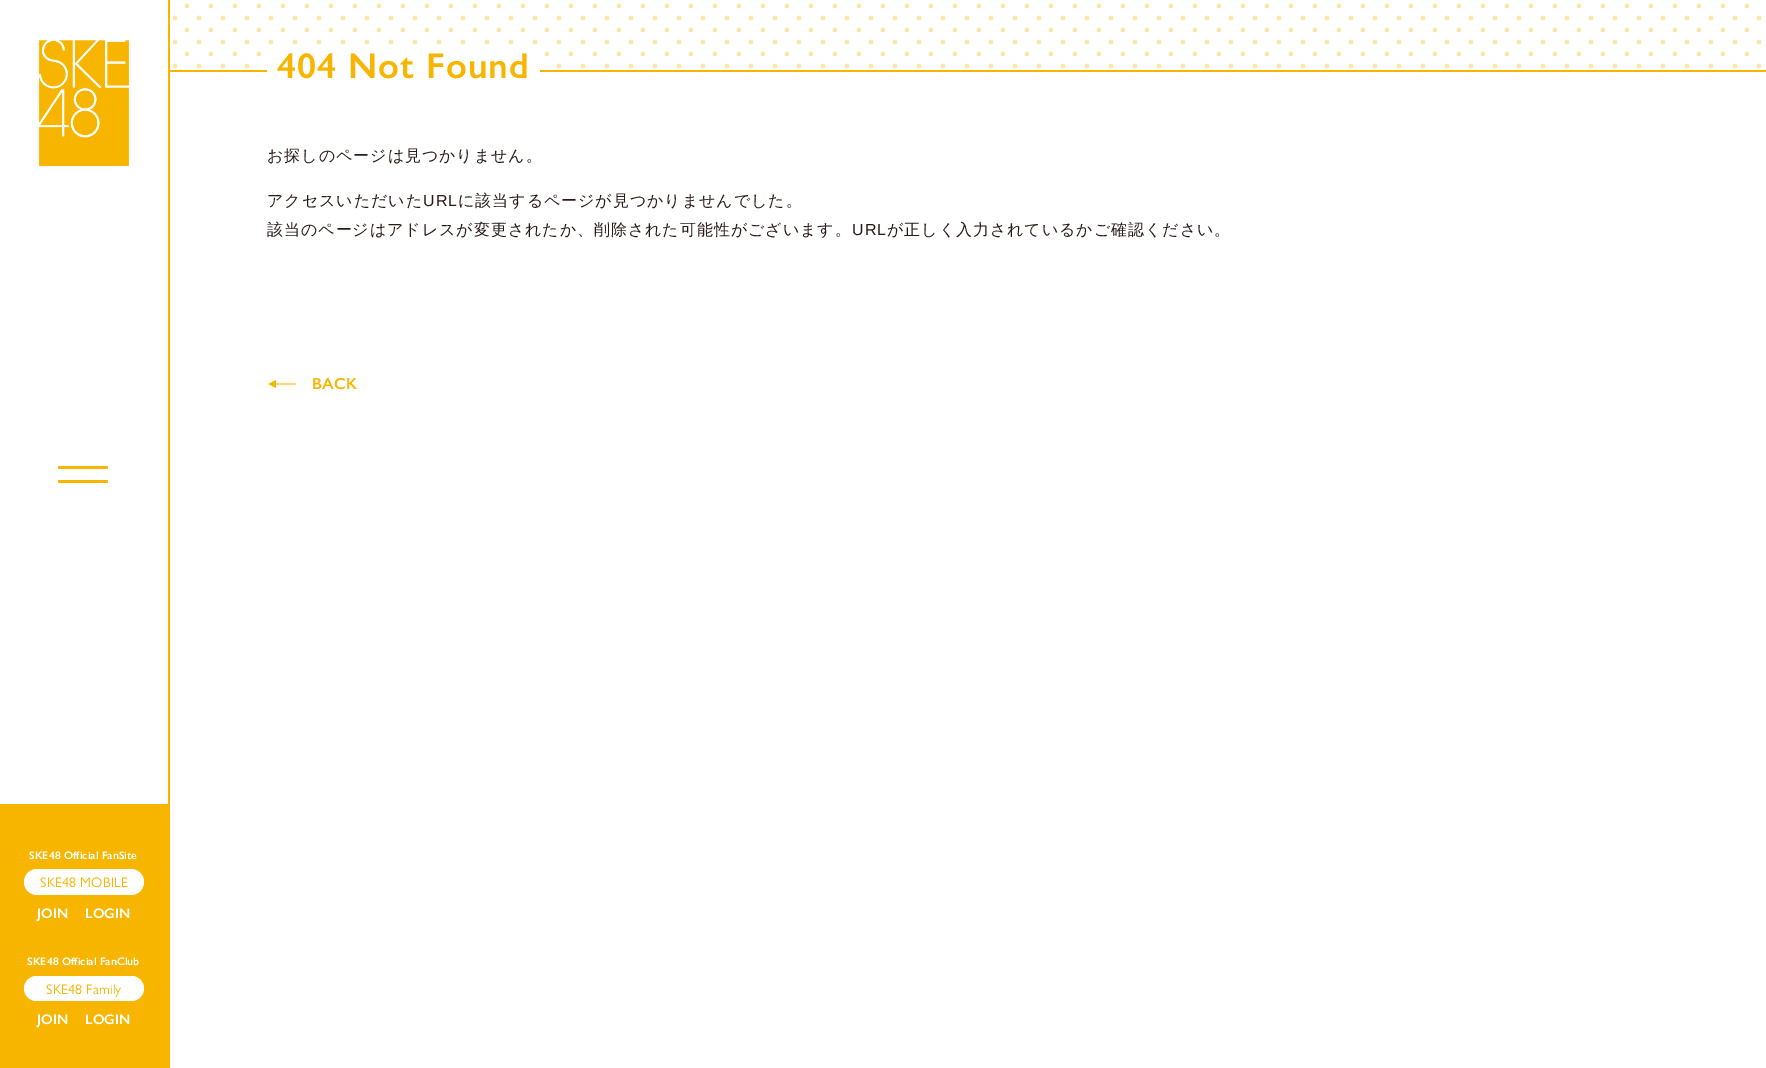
%!PS
<< /PageSize [1766 1068] >> setpagedevice
/rgb { 3 { 255 div 3 1 roll } repeat setrgbcolor } def
/font { [ exch dup neg 0 0 3 -1 roll 0 0 ] selectfont } def
/roundrect { 5 dict begin { /r /h /w /y /x } { exch def } forall
  x r add y moveto x w add y 2 copy h add r arct x w add y h add x 1 index r arct
  x y h add x y r arct x y 2 copy exch w add exch r arct closepath end } def
/picture { 5 dict begin { /h /w /y /x /name } { exch def } forall
  gsave x y translate w h scale
  w h 8 [w 0 0 h 0 0] name (r) file false 3 colorimage grestore end } def
0 1068 translate 1 -1 scale
4 setmiterlimit
255 255 255 rgb
0 0 1766 1068 rectfill
(img_01.rgb) 172 3 1590 66 picture
248 181 0 rgb
170 70 1596 2 rectfill
255 255 255 rgb
267 51 273 21 rectfill
248 181 0 rgb
268.5 384 moveto 7.5 -4 rlineto 0 3.5 rlineto 20 0 rlineto 0 1 rlineto -20 0 rlineto 0 3.5 rlineto closepath fill
168 0 2 1068 rectfill
(img_02.rgb) 39 40 90 126 picture
58 466 50 3 1.5 roundrect fill
58 480 50 3 1.5 roundrect fill
0 804 168 264 rectfill
255 255 255 rgb
24 869 120 26 13 roundrect fill
24 976 120 25 12.5 roundrect fill
/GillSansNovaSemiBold-SemiBold 36 font
248 181 0 rgb
277 78 moveto 0.95 0 (404 Not Found) ashow
/WenQuanYiZenHei-Medium 16 font
40 25 22 rgb
267 161 moveto 0.95 0 (お探しのページは見つかりません。) ashow
267 206 moveto 0.95 0 (アクセスいただいた) ashow
/LiberationSans-Regular 16 font
423 206 moveto 0.95 0 (URL) ashow
/WenQuanYiZenHei-Medium 16 font
458 206 moveto 0.95 0 (に該当するページが見つかりませんでした。) ashow
267 235 moveto 0.95 0 (該当のページはアドレスが変更されたか、削除された可能性がございます。) ashow
/LiberationSans-Regular 16 font
852 235 moveto 0.95 0 (URL) ashow
/WenQuanYiZenHei-Medium 16 font
887 235 moveto 0.95 0 (が正しく入力されているかご確認ください。) ashow
/GillSansNovaSemiBold-SemiBold 16 font
248 181 0 rgb
312 389 moveto 0.5 0 (BACK) ashow
/GillSansNovaSemiBold-SemiBold 11 font
255 255 255 rgb
29 859 moveto 0.1 0 (SKE48 Official FanSite) ashow
/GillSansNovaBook-Regular 14 font
248 181 0 rgb
40 887 moveto 0.1 0 (SKE48 MOBILE) ashow
/GillSansNovaSemiBold-SemiBold 14 font
255 255 255 rgb
37 918 moveto 0.1 0 (JOIN) ashow
85 918 moveto 0.1 0 (LOGIN) ashow
/GillSansNovaSemiBold-SemiBold 11 font
27 965 moveto 0.1 0 (SKE48 Official FanClub) ashow
/GillSansNovaBook-Regular 14 font
248 181 0 rgb
46 994 moveto 0.1 0 (SKE48 Family) ashow
/GillSansNovaSemiBold-SemiBold 14 font
255 255 255 rgb
37 1024 moveto 0.1 0 (JOIN) ashow
85 1024 moveto 0.1 0 (LOGIN) ashow
showpage
